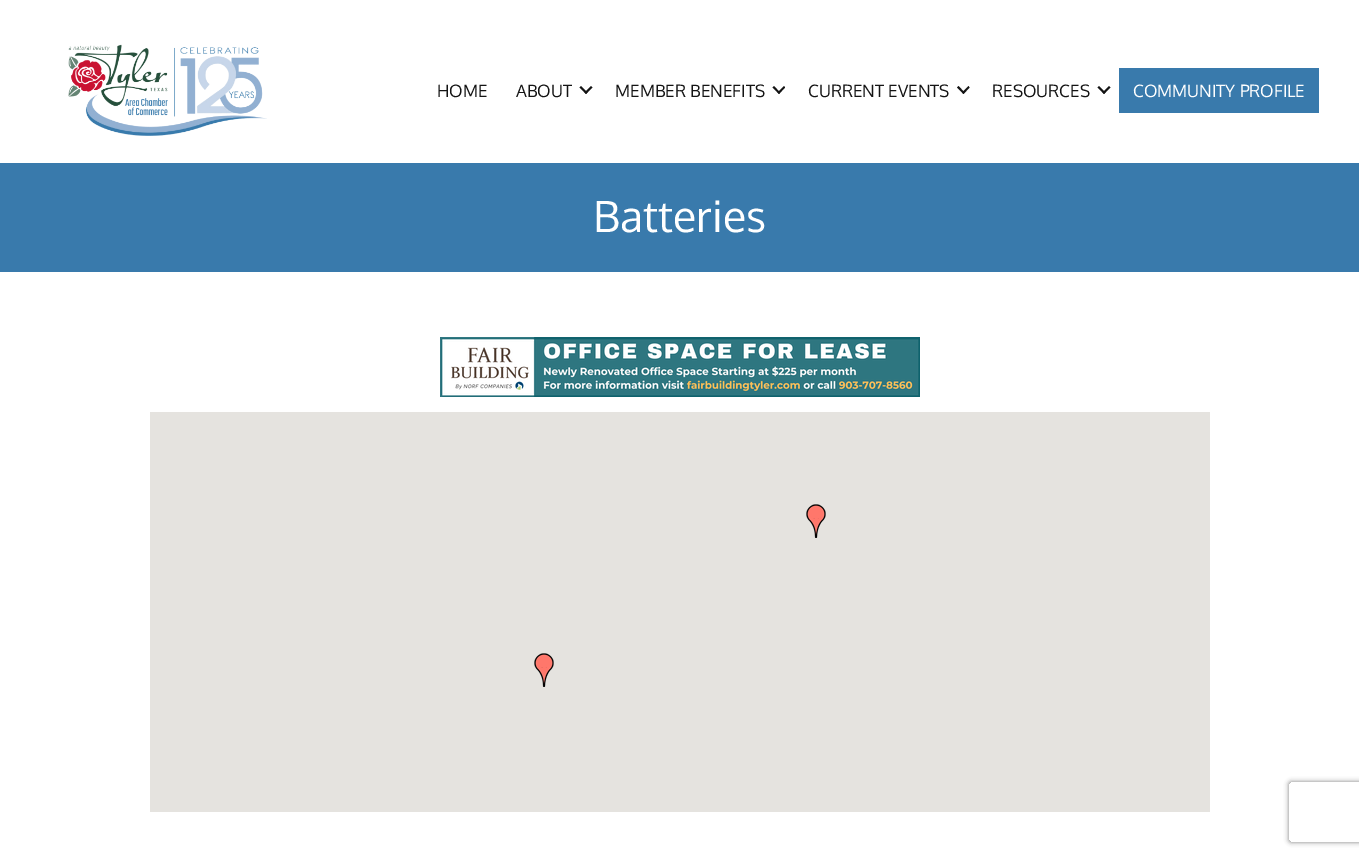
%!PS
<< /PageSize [1359 856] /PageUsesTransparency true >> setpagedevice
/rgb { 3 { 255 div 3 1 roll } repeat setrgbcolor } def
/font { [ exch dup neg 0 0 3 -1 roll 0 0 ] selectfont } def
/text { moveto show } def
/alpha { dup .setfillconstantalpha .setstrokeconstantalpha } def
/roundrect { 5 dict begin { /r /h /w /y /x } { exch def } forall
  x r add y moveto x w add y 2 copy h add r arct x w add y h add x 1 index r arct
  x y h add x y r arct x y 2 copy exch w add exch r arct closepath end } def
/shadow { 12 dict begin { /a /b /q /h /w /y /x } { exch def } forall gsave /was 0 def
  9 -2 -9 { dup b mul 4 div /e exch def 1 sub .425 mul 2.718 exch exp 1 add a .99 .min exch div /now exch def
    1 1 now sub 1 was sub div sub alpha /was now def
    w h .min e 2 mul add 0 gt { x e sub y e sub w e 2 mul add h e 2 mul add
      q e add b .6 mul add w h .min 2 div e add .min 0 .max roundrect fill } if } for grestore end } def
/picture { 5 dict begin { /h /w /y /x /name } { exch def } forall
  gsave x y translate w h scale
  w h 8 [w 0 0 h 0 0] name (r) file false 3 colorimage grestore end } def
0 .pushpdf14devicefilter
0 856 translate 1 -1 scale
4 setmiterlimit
255 255 255 rgb
0 0 1359 856 rectfill
(img_01.rgb) 68 44 199 92 picture
20 20 20 rgb
591 86 moveto 1.5 1.5 rlineto -6.5 6.5 rlineto -1.5 -1.5 rlineto closepath fill
581 86 moveto 6.5 6.5 rlineto -1.5 1.5 rlineto -6.5 -6.5 rlineto closepath fill
784 86 moveto 1 1.5 rlineto -6 6.5 rlineto -1.5 -1.5 rlineto closepath fill
774 86 moveto 6 6.5 rlineto -1 1.5 rlineto -6.5 -6.5 rlineto closepath fill
968.5 86 moveto 1 1.5 rlineto -6 6.5 rlineto -1.5 -1.5 rlineto closepath fill
958.5 86 moveto 6 6.5 rlineto -1 1.5 rlineto -6.5 -6.5 rlineto closepath fill
1109 86 moveto 1.5 1.5 rlineto -6.5 6.5 rlineto -1.5 -1.5 rlineto closepath fill
1099 86 moveto 6.5 6.5 rlineto -1.5 1.5 rlineto -6.5 -6.5 rlineto closepath fill
57 122 172 rgb
1119 68 200 45 rectfill
0 163 1359 109 rectfill
(img_02.rgb) 440 337 480 60 picture
229 227 223 rgb
150 412 1060 400 rectfill
(img_03.rgb) 806 504 20 34 picture
(img_03.rgb) 534 653 20 34 picture
gsave
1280 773 moveto 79 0 rlineto 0 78 rlineto -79 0 rlineto closepath 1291 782 moveto 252 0 rlineto 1 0 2 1 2 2 rcurveto 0 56 rlineto 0 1 -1 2 -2 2 rcurveto -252 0 rlineto -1 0 -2 -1 -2 -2 rcurveto 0 -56 rlineto 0 -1 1 -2 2 -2 rcurveto closepath eoclip newpath
128 128 128 rgb
1289 782 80 60 2 2.5 1 shadow
grestore
/Oxygen-Regular 17 font
20 20 20 rgb
(HOME) 437 97 text
(ABOUT) 516 97 text
(MEMBER BENEFITS) 615 97 text
(CURRENT EVENTS) 808 97 text
(RESOURCES) 992 97 text
255 255 255 rgb
(COMMUNITY PROFILE) 1133 97 text
/Oxygen-Regular 43 font
(Batteries) 593 232 text
.poppdf14devicefilter showpage
